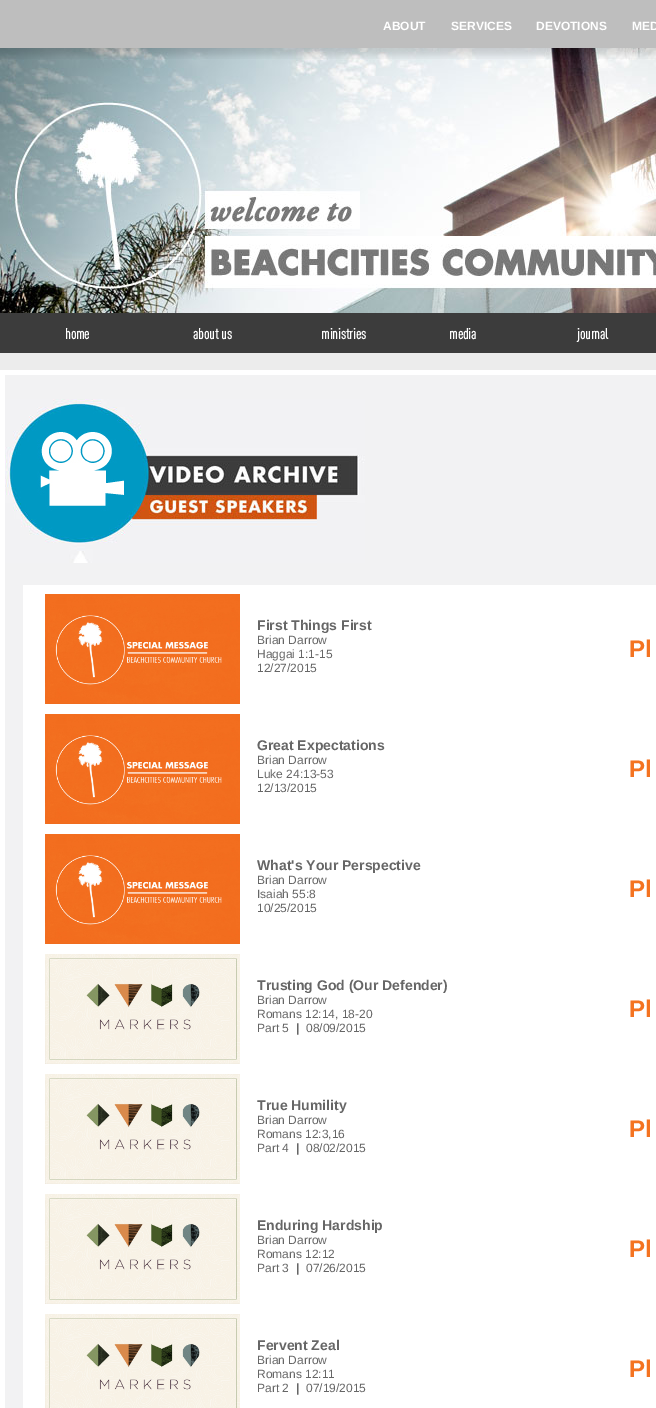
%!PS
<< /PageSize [656 1408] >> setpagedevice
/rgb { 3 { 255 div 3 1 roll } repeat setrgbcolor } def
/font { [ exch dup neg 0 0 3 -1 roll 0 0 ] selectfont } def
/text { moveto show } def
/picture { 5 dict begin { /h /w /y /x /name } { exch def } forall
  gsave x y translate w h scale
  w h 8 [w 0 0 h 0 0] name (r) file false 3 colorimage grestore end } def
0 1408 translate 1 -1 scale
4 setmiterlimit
236 236 236 rgb
0 0 656 1408 rectfill
(img_02.rgb) 0 48 656 265 picture
(img_01.rgb) 0 0 656 59 picture
60 60 60 rgb
0 313 656 40 rectfill
255 255 255 rgb
0 370 656 1038 rectfill
242 242 243 rgb
5 375 651 1033 rectfill
(img_03.rgb) 5 399 360 164 picture
255 255 255 rgb
23 585 633 823 rectfill
(img_04.rgb) 45 594 195 110 picture
(img_05.rgb) 45 714 195 110 picture
(img_06.rgb) 45 834 195 110 picture
(img_07.rgb) 45 954 195 110 picture
(img_07.rgb) 45 1074 195 110 picture
(img_07.rgb) 45 1194 195 110 picture
(img_08.rgb) 45 1314 195 94 picture
/LiberationSans-Bold 12 font
(ABOUT) 383 30 text
(SERVICES) 451 30 text
(DEVOTIONS) 536 30 text
(MED) 632 30 text
/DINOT-Bold 15 font
(home) 65 339 text
(about us) 193 339 text
(ministries) 321 339 text
(media) 449 339 text
(journal) 577 339 text
/LiberationSans-Bold 14 font
102 102 102 rgb
(First Things First) 257 630 text
/LiberationSans-Regular 12 font
(Brian Darrow) 257 644 text
(Haggai 1:1-15) 257 658 text
(12/27/2015) 257 672 text
/LiberationSans-Bold 24 font
244 115 33 rgb
(Pl) 629 657 text
/LiberationSans-Bold 14 font
102 102 102 rgb
(Great Expectations) 257 750 text
/LiberationSans-Regular 12 font
(Brian Darrow) 257 764 text
(Luke 24:13-53) 257 778 text
(12/13/2015) 257 792 text
/LiberationSans-Bold 24 font
244 115 33 rgb
(Pl) 629 777 text
/LiberationSans-Bold 14 font
102 102 102 rgb
(What's Your Perspective) 257 870 text
/LiberationSans-Regular 12 font
(Brian Darrow) 257 884 text
(Isaiah 55:8) 257 898 text
(10/25/2015) 257 912 text
/LiberationSans-Bold 24 font
244 115 33 rgb
(Pl) 629 897 text
/LiberationSans-Bold 14 font
102 102 102 rgb
(Trusting God \(Our Defender\)) 257 990 text
/LiberationSans-Regular 12 font
(Brian Darrow) 257 1004 text
(Romans 12:14, 18-20) 257 1018 text
(Part 5) 257 1032 text
/LiberationSans-Bold 12 font
(|) 296 1032 text
/LiberationSans-Regular 12 font
(08/09/2015) 306 1032 text
/LiberationSans-Bold 24 font
244 115 33 rgb
(Pl) 629 1017 text
/LiberationSans-Bold 14 font
102 102 102 rgb
(True Humility) 257 1110 text
/LiberationSans-Regular 12 font
(Brian Darrow) 257 1124 text
(Romans 12:3,16) 257 1138 text
(Part 4) 257 1152 text
/LiberationSans-Bold 12 font
(|) 296 1152 text
/LiberationSans-Regular 12 font
(08/02/2015) 306 1152 text
/LiberationSans-Bold 24 font
244 115 33 rgb
(Pl) 629 1137 text
/LiberationSans-Bold 14 font
102 102 102 rgb
(Enduring Hardship) 257 1230 text
/LiberationSans-Regular 12 font
(Brian Darrow) 257 1244 text
(Romans 12:12) 257 1258 text
(Part 3) 257 1272 text
/LiberationSans-Bold 12 font
(|) 296 1272 text
/LiberationSans-Regular 12 font
(07/26/2015) 306 1272 text
/LiberationSans-Bold 24 font
244 115 33 rgb
(Pl) 629 1257 text
/LiberationSans-Bold 14 font
102 102 102 rgb
(Fervent Zeal) 257 1350 text
/LiberationSans-Regular 12 font
(Brian Darrow) 257 1364 text
(Romans 12:11) 257 1378 text
(Part 2) 257 1392 text
/LiberationSans-Bold 12 font
(|) 296 1392 text
/LiberationSans-Regular 12 font
(07/19/2015) 306 1392 text
/LiberationSans-Bold 24 font
244 115 33 rgb
(Pl) 629 1377 text
showpage
